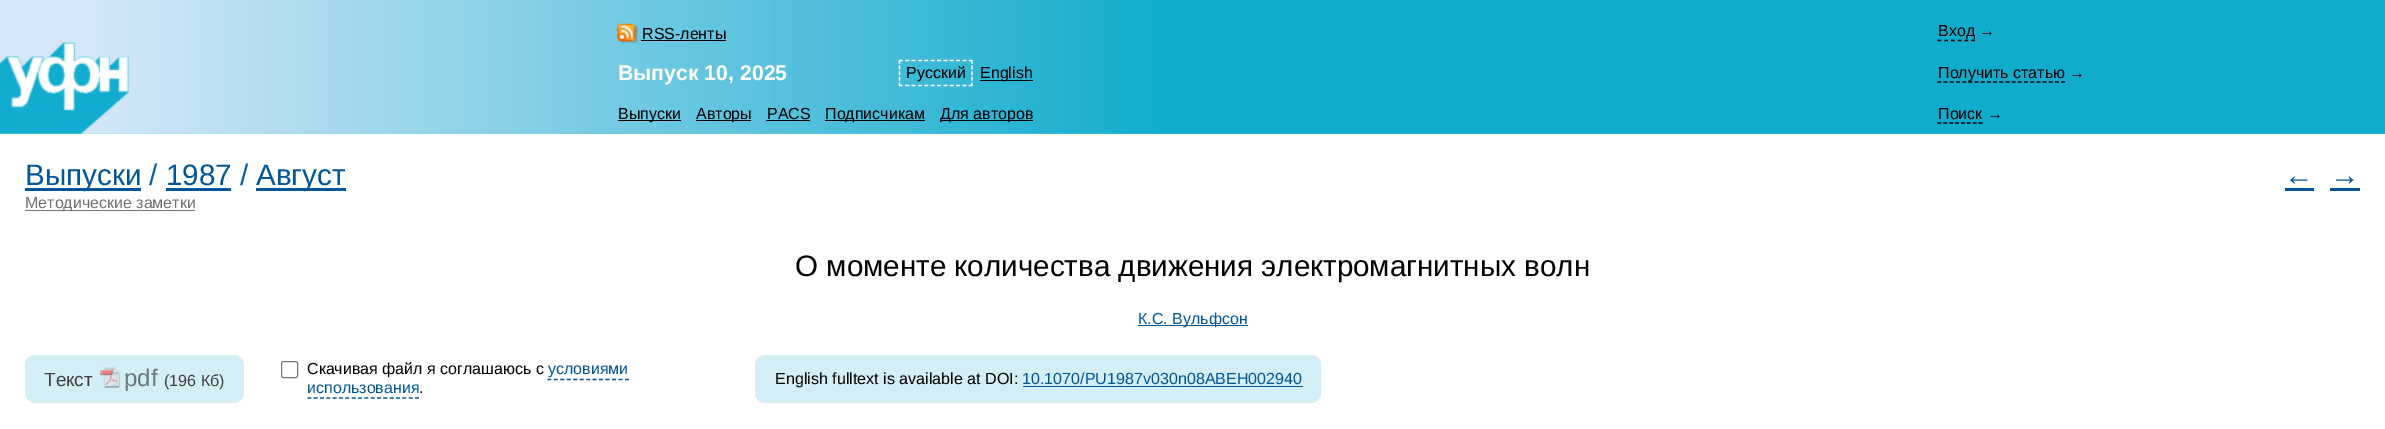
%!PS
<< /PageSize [2385 429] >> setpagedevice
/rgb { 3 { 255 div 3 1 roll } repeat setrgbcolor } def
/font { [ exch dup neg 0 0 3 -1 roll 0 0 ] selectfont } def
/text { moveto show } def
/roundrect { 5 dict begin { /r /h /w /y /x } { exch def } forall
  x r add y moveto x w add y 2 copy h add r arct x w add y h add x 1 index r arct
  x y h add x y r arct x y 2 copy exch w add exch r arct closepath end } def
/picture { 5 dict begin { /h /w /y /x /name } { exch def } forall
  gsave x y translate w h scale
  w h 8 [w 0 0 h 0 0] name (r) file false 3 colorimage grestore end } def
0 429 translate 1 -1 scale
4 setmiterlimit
255 255 255 rgb
0 0 2385 429 rectfill
(img_01.rgb) 0 0 2385 134 picture
(img_02.rgb) 617 23 21 20 picture
0 0 0 rgb
641 40 85 1 rectfill
1.2 setlinewidth
[3.75 3] 0 setdash
1937.5 40.5 moveto 37.5 0 rlineto stroke
(img_03.rgb) 0 42 129 92 picture
255 255 255 rgb
[3.75 2.61] 0 setdash
899 60.5 moveto 73.5 0 rlineto stroke
[3.75 1.88] 0 setdash
972 60 moveto 0 26 rlineto stroke
[3.75 2.61] 0 setdash
899 85.5 moveto 73.5 0 rlineto stroke
[3.75 1.88] 0 setdash
899.5 60 moveto 0 26 rlineto stroke
0 0 0 rgb
980 80 53 1 rectfill
[3.75 2.44] 0 setdash
1937.5 82 moveto 127.5 0 rlineto stroke
618 120 63 1 rectfill
696 120 55 1 rectfill
766 120 44 1 rectfill
825 120 100 1 rectfill
940 120 93 1 rectfill
[3.75 2.14] 0 setdash
1937.5 123 moveto 45 0 rlineto stroke
0 86 152 rgb
25 188 116 3 rectfill
166 188 65 3 rectfill
256 188 90 3 rectfill
2285 188 29 3 rectfill
2330 188 30 3 rectfill
112 112 112 rgb
25 210 170 1 rectfill
0 86 152 rgb
1138 325 110 1 rectfill
211 238 244 rgb
25 355 219 48 10 roundrect fill
(img_04.rgb) 100 367 20 21 picture
118 118 118 rgb
1 setlinewidth
[] 0 setdash
281.5 361.5 16 16 2 roundrect stroke
0 86 152 rgb
1.2 setlinewidth
[3.75 2.71] 0 setdash
547.5 379.5 moveto 81.5 0 rlineto stroke
[3.75 2.58] 0 setdash
307.5 398 moveto 111.5 0 rlineto stroke
211 238 244 rgb
755 355 566 48 10 roundrect fill
0 86 152 rgb
1023 386 280 1 rectfill
/LiberationSans-Regular 16 font
0 0 0 rgb
(RSS-ленты) 642 39 text
(Вход →) 1938 36 text
(Русский) 906 78 text
(English) 980 78 text
/LiberationSans-Bold 21.25 font
255 255 255 rgb
(Выпуск 10, 2025) 618 80 text
/LiberationSans-Regular 16 font
0 0 0 rgb
(Получить статью →) 1938 78 text
(Выпуски) 618 119 text
(Авторы) 696 119 text
(PACS) 767 119 text
(Подписчикам) 825 119 text
(Для авторов) 940 119 text
(Поиск →) 1938 119 text
/LiberationSans-Regular 29.6 font
0 86 152 rgb
(Выпуски) 25 185 text
0 96 169 rgb
(/) 149 185 text
0 86 152 rgb
(1987) 166 185 text
0 96 169 rgb
(/) 240 185 text
0 86 152 rgb
(Август) 256 185 text
(←) 2284 185 text
(→) 2330 185 text
/LiberationSans-Regular 16 font
112 112 112 rgb
(Методические заметки) 25 208 text
/LiberationSans-Regular 29.6 font
0 0 0 rgb
(О моменте количества движения электромагнитных волн) 795 276 text
/LiberationSans-Regular 16 font
0 86 152 rgb
(К.С. Вульфсон) 1138 324 text
/LiberationSans-Regular 19 font
64 64 64 rgb
(Текст) 44 386 text
/LiberationSans-Regular 24 font
106 119 122 rgb
(pdf) 124 386 text
/LiberationSans-Regular 16.1 font
64 64 64 rgb
(\(196 Кб\)) 164 386 text
/LiberationSans-Regular 16 font
0 0 0 rgb
(Скачивая файл я соглашаюсь с) 307 374 text
0 86 152 rgb
(условиями) 548 374 text
(использования) 307 393 text
0 0 0 rgb
(.) 419 393 text
/LiberationSans-Regular 16.1 font
(English fulltext is available at DOI:) 775 384 text
0 86 152 rgb
(10.1070/PU1987v030n08ABEH002940) 1022 384 text
showpage
